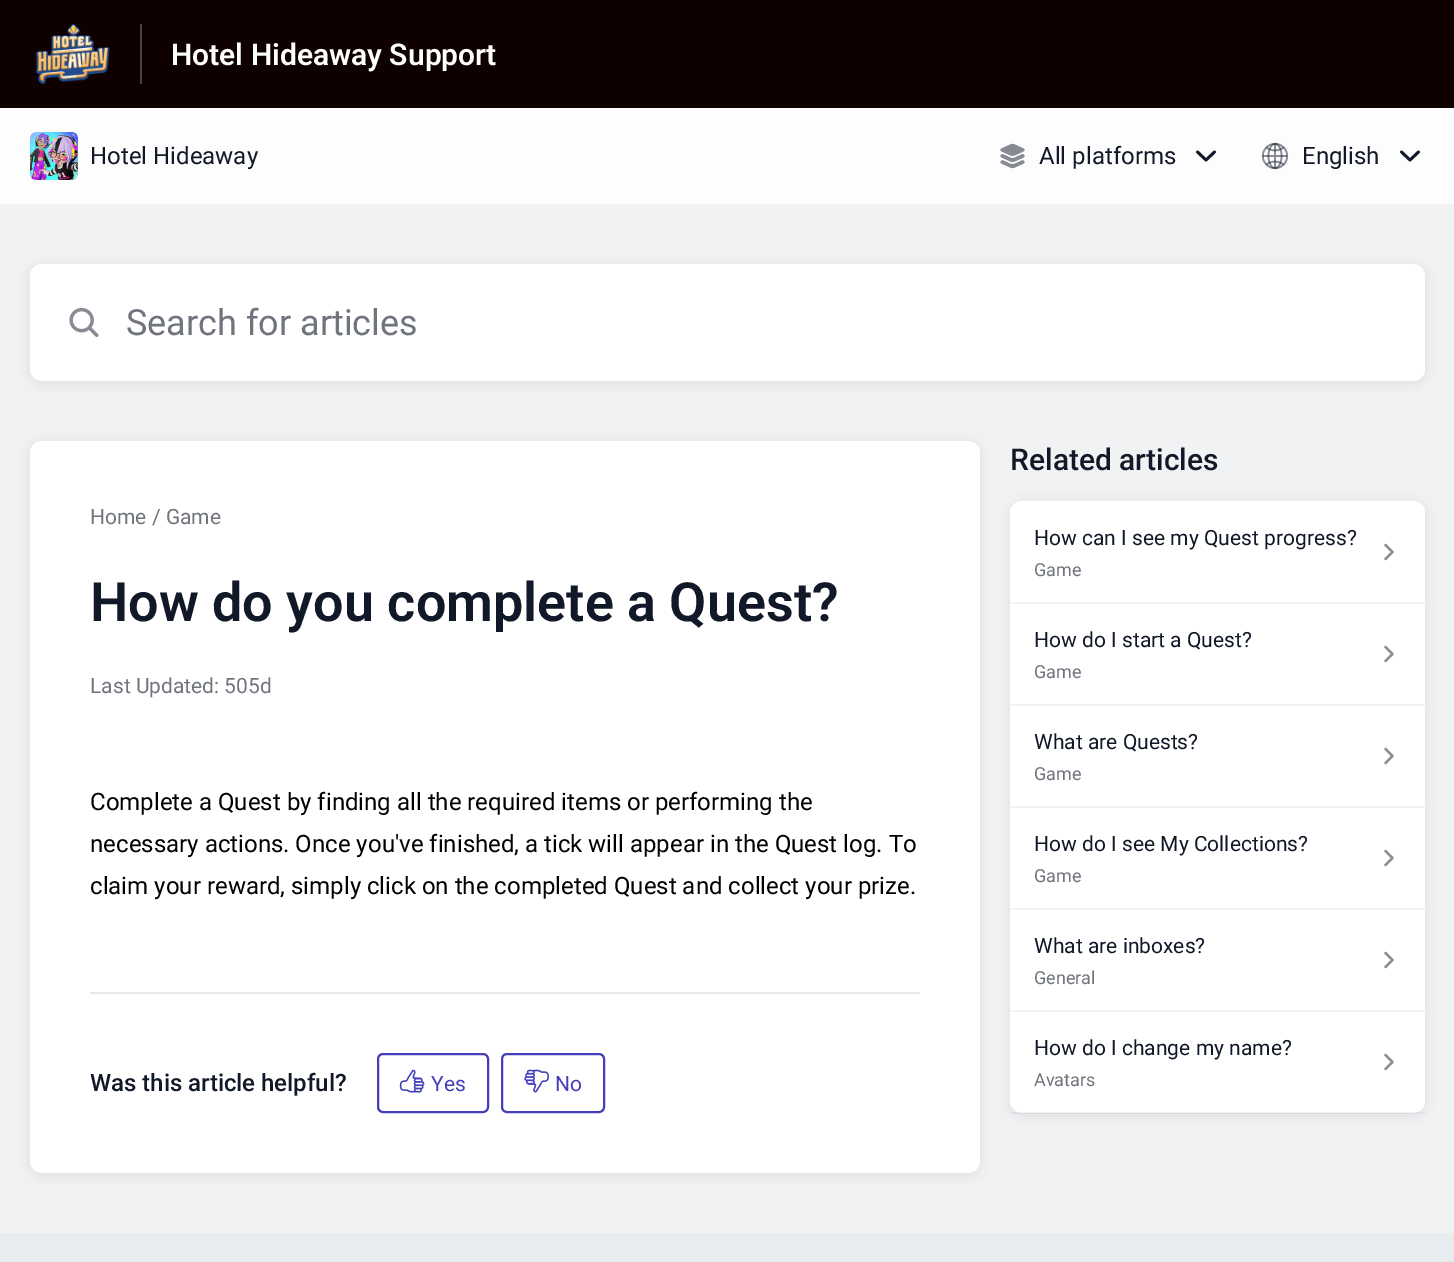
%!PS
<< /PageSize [1454 1262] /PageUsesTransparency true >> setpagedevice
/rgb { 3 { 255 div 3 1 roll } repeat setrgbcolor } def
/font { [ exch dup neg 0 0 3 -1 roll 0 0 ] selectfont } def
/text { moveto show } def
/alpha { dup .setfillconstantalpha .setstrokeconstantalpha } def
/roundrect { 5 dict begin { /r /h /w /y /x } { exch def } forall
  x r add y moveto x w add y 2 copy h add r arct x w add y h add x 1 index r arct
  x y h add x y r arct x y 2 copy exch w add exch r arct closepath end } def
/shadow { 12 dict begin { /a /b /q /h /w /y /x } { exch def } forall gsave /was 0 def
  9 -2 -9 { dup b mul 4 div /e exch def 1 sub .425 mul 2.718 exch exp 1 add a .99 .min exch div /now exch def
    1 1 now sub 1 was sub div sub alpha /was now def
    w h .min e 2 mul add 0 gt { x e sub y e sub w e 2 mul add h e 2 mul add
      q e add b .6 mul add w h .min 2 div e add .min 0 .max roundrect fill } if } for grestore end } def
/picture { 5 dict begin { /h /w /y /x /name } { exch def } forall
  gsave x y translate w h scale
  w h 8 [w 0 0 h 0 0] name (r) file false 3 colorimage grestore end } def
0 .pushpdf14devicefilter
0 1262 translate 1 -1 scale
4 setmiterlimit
253 253 253 rgb
0 0 1454 1262 rectfill
16 1 1 rgb
0 0 1454 108 rectfill
76 65 65 rgb
140 24 2 60 rectfill
(img_01.rgb) 36 24 74 60 picture
(img_02.rgb) 30 132 48 48 picture
(img_03.rgb) 1000 143 25 26 picture
17 24 39 rgb
2.8 setlinewidth
1 setlinecap
1 setlinejoin
1197.5 152 moveto 8.5 8 rlineto 8.5 -8 rlineto stroke
(img_04.rgb) 1261 142 28 28 picture
1401.5 152 moveto 8.5 8 rlineto 8.5 -8 rlineto stroke
240 242 244 rgb
0 204 1454 1029 rectfill
0 0 0 rgb
30 266 1395 117 12 6 0.08 shadow
255 255 255 rgb
30 264 1395 117 12 roundrect fill
(img_05.rgb) 69 307 30 30 picture
0 0 0 rgb
30 443 950 732 12 6 0.08 shadow
255 255 255 rgb
30 441 950 732 12 roundrect fill
231 232 233 rgb
90 992 830 2 rectfill
69 63 185 rgb
2 setlinewidth
0 setlinecap
0 setlinejoin
378 1054 110 58 5 roundrect stroke
(img_06.rgb) 399 1069 26 24 picture
502 1054 102 58 5 roundrect stroke
(img_07.rgb) 524 1069 25 24 picture
0 0 0 rgb
1010 503 415 612 12 6 0.08 shadow
255 255 255 rgb
1010 501 415 612 12 roundrect fill
243 243 244 rgb
1010 602 415 2 rectfill
136 140 147 rgb
2.2 setlinewidth
1 setlinecap
1 setlinejoin
1385.5 545 moveto 7 7 rlineto -7 7 rlineto stroke
243 243 244 rgb
1010 704 415 2 rectfill
136 140 147 rgb
1385.5 647 moveto 7 7 rlineto -7 7 rlineto stroke
243 243 244 rgb
1010 806 415 2 rectfill
136 140 147 rgb
1385.5 749 moveto 7 7 rlineto -7 7 rlineto stroke
243 243 244 rgb
1010 908 415 2 rectfill
136 140 147 rgb
1385.5 851 moveto 7 7 rlineto -7 7 rlineto stroke
243 243 244 rgb
1010 1010 415 2 rectfill
136 140 147 rgb
1385.5 953 moveto 7 7 rlineto -7 7 rlineto stroke
0.05 alpha
17 24 39 rgb
1010 1112 415 2 rectfill
1 alpha
136 140 147 rgb
1385.5 1055 moveto 7 7 rlineto -7 7 rlineto stroke
232 236 239 rgb
0 1233 1454 29 rectfill
/Roboto-SemiBold 30 font
255 255 255 rgb
(Hotel Hideaway Support) 171 65 text
/Roboto-Regular 24 font
17 24 39 rgb
(Hotel Hideaway) 90 164 text
(All platforms) 1039 164 text
(English) 1302 164 text
/Roboto-Regular 36 font
112 116 125 rgb
(Search for articles) 126 335 text
/Roboto-Regular 21 font
(Home / Game) 90 524 text
/Roboto-SemiBold 54 font
17 24 39 rgb
(How do you complete a Quest?) 90 621 text
/Roboto-Regular 21 font
112 116 125 rgb
(Last Updated: 505d) 90 693 text
/Roboto-Regular 24 font
0 0 0 rgb
(Complete a Quest by finding all the required items or performing the) 90 810 text
(necessary actions. Once you've finished, a tick will appear in the Quest log. To) 90 852 text
(claim your reward, simply click on the completed Quest and collect your prize.) 90 894 text
/Roboto-Medium 24 font
17 24 39 rgb
(Was this article helpful?) 90 1091 text
/Roboto-Regular 21 font
69 63 185 rgb
(Yes) 431 1091 text
(No) 555 1091 text
/Roboto-Medium 30 font
17 24 39 rgb
(Related articles) 1010 470 text
/Roboto-Regular 21 font
(How can I see my Quest progress?) 1034 545 text
/Roboto-Regular 18 font
112 116 125 rgb
(Game) 1034 576 text
/Roboto-Regular 21 font
17 24 39 rgb
(How do I start a Quest?) 1034 647 text
/Roboto-Regular 18 font
112 116 125 rgb
(Game) 1034 678 text
/Roboto-Regular 21 font
17 24 39 rgb
(What are Quests?) 1034 749 text
/Roboto-Regular 18 font
112 116 125 rgb
(Game) 1034 780 text
/Roboto-Regular 21 font
17 24 39 rgb
(How do I see My Collections?) 1034 851 text
/Roboto-Regular 18 font
112 116 125 rgb
(Game) 1034 882 text
/Roboto-Regular 21 font
17 24 39 rgb
(What are inboxes?) 1034 953 text
/Roboto-Regular 18 font
112 116 125 rgb
(General) 1034 984 text
/Roboto-Regular 21 font
17 24 39 rgb
(How do I change my name?) 1034 1055 text
/Roboto-Regular 18 font
112 116 125 rgb
(Avatars) 1034 1086 text
.poppdf14devicefilter showpage
